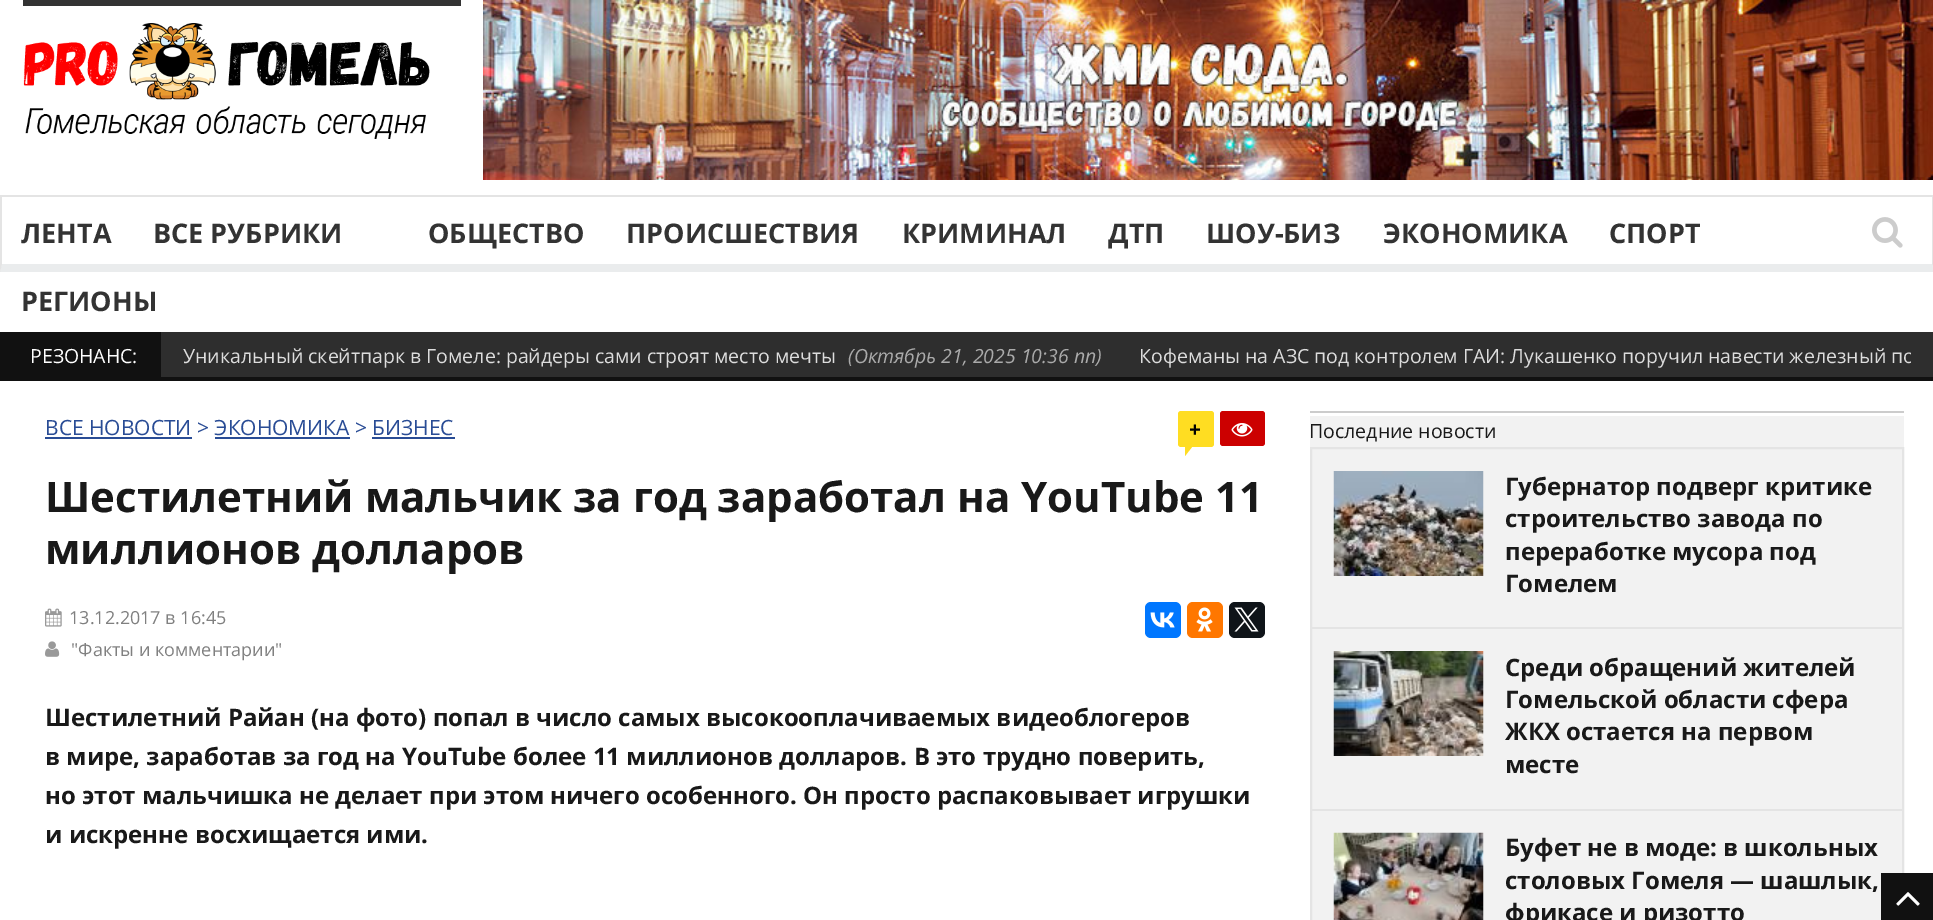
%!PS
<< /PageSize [1933 920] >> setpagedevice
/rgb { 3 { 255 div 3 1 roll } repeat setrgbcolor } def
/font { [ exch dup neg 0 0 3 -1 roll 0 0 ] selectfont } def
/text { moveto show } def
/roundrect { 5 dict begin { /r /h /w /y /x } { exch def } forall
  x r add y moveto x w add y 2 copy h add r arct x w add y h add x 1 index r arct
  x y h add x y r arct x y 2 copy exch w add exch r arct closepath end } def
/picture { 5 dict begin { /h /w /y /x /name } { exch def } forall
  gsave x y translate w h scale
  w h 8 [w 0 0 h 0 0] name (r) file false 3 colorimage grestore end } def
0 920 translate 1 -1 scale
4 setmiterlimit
255 255 255 rgb
0 0 1933 920 rectfill
51 51 51 rgb
23 0 438 6 rectfill
(img_01.rgb) 23 23 407 116 picture
(img_02.rgb) 483 0 1450 180 picture
228 228 228 rgb
0 195 1933 2 rectfill
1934 195 moveto 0 77 rlineto -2 -8 rlineto 0 -68 rlineto closepath fill
234 236 237 rgb
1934 272 moveto -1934 0 rlineto 2 -8 rlineto 1930 0 rlineto closepath fill
228 228 228 rgb
0 272 moveto 0 -77 rlineto 2 1 rlineto 0 68 rlineto closepath fill
(img_03.rgb) 1872 217 31 31 picture
17 17 17 rgb
0 332 1933 49 rectfill
46 46 46 rgb
161 332 1772 45 rectfill
41 76 149 rgb
45 437 147 2 rectfill
215 437 135 2 rectfill
372 437 83 2 rectfill
255 221 34 rgb
1185 456 moveto 0 -45 rlineto 7 0 rlineto 0 36 rlineto closepath fill
1178 411 36 36 3 roundrect fill
204 0 0 rgb
1220 411 45 35 3 roundrect fill
(img_04.rgb) 1231 423 22 14 picture
(img_05.rgb) 45 608 17 19 picture
(img_06.rgb) 45 641 15 16 picture
0 119 255 rgb
1145 602 36 36 6 roundrect fill
(img_07.rgb) 1150 612 25 16 picture
255 119 0 rgb
1187 602 36 36 6 roundrect fill
(img_08.rgb) 1196 607 17 25 picture
15 20 25 rgb
1229 602 36 36 6 roundrect fill
(img_09.rgb) 1234 607 25 25 picture
204 204 204 rgb
1310 411 594 2 rectfill
242 242 242 rgb
1310 416 594 504 rectfill
228 228 228 rgb
2 setlinewidth
1311 448 592 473 rectstroke
1311 627 591 2 rectfill
(img_10.rgb) 1333 471 151 105 picture
1311 809 591 2 rectfill
(img_11.rgb) 1333 651 151 105 picture
(img_12.rgb) 1333 832 151 88 picture
17 17 17 rgb
1881 873 52 47 rectfill
(img_13.rgb) 1896 892 24 14 picture
/OpenSans-Bold 27 font
51 51 51 rgb
(ЛЕНТА) 21 243 text
(ВСЕ РУБРИКИ) 153 243 text
(ОБЩЕСТВО) 428 243 text
(ПРОИСШЕСТВИЯ) 626 243 text
(КРИМИНАЛ) 902 243 text
(ДТП) 1108 243 text
(ШОУ-БИЗ) 1206 243 text
(ЭКОНОМИКА) 1383 243 text
(СПОРТ) 1609 243 text
(РЕГИОНЫ) 21 311 text
/OpenSans-Regular 19.5 font
255 255 255 rgb
(РЕЗОНАНС:) 30 363 text
221 221 221 rgb
(Уникальный скейтпарк в Гомеле: райдеры сами строят место мечты) 183 363 text
/OpenSans-Italic 19.5 font
170 170 170 rgb
(\(Октябрь 21, 2025 10:36 пп\)) 848 363 text
gsave
183 332 1728 45 rectclip
/OpenSans-Regular 19.5 font
221 221 221 rgb
(Кофеманы на АЗС под контролем ГАИ: Лукашенко поручил навести железный по) 1139 363 text
grestore
/OpenSans-Regular 21 font
41 76 149 rgb
(ВСЕ НОВОСТИ > ЭКОНОМИКА > БИЗНЕС) 45 435 text
/OpenSans-Bold 21 font
0 0 0 rgb
(+) 1189 437 text
/OpenSans-Bold 42 font
25 25 25 rgb
(Шестилетний мальчик за год заработал на YouTube 11) 45 512 text
(миллионов долларов) 45 564 text
/OpenSans-Regular 18 font
128 128 128 rgb
(13.12.2017 в 16:45) 69 624 text
("Факты и комментарии") 71 656 text
/OpenSans-Bold 24 font
25 25 25 rgb
(Шестилетний Райан \(на фото\) попал в число самых высокооплачиваемых видеоблогеров) 45 726 text
(в мире, заработав за год на YouTube более 11 миллионов долларов. В это трудно поверить,) 45 765 text
(но этот мальчишка не делает при этом ничего особенного. Он просто распаковывает игрушки) 45 804 text
(и искренне восхищается ими.) 45 843 text
/OpenSans-Regular 19.5 font
(Последние новости) 1309 438 text
/OpenSans-Bold 24 font
(Губернатор подверг критике) 1505 495 text
(строительство завода по) 1505 527 text
(переработке мусора под) 1505 560 text
(Гомелем) 1505 592 text
(Среди обращений жителей) 1505 676 text
(Гомельской области сфера) 1505 708 text
(ЖКХ остается на первом) 1505 740 text
(месте) 1505 773 text
(Буфет не в моде: в школьных) 1505 856 text
(столовых Гомеля — шашлык,) 1505 889 text
(фрикасе и ризотто) 1505 921 text
showpage
